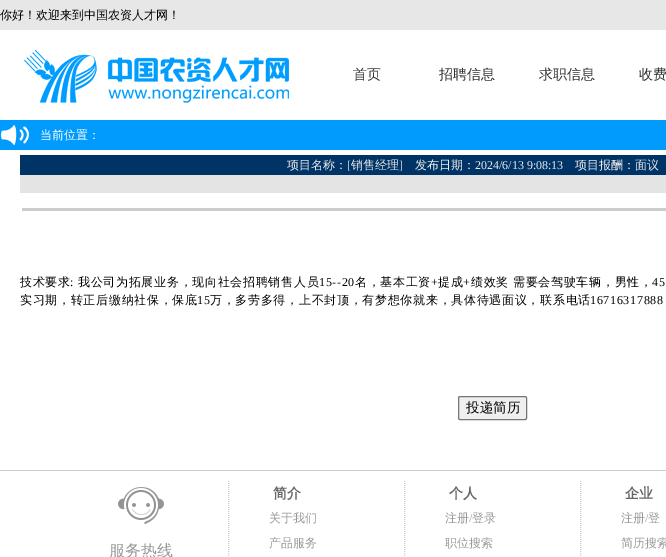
%!PS
<< /PageSize [666 557] >> setpagedevice
/rgb { 3 { 255 div 3 1 roll } repeat setrgbcolor } def
/font { [ exch dup neg 0 0 3 -1 roll 0 0 ] selectfont } def
/text { moveto show } def
/roundrect { 5 dict begin { /r /h /w /y /x } { exch def } forall
  x r add y moveto x w add y 2 copy h add r arct x w add y h add x 1 index r arct
  x y h add x y r arct x y 2 copy exch w add exch r arct closepath end } def
/picture { 5 dict begin { /h /w /y /x /name } { exch def } forall
  gsave x y translate w h scale
  w h 8 [w 0 0 h 0 0] name (r) file false 3 colorimage grestore end } def
0 557 translate 1 -1 scale
4 setmiterlimit
255 255 255 rgb
0 0 666 557 rectfill
231 231 231 rgb
0 0 666 30 rectfill
(img_01.rgb) 22 47 267 62 picture
0 155 252 rgb
0 120 666 30 rectfill
(img_02.rgb) 1 125 28 20 picture
0 51 102 rgb
20 155 646 20 rectfill
228 228 228 rgb
20 175 646 18 rectfill
204 204 204 rgb
22 208 644 3 rectfill
239 239 239 rgb
458.5 396.5 68 23 1.5 roundrect gsave fill grestore
118 118 118 rgb
stroke
204 204 204 rgb
0 470 666 1 rectfill
[1 1] 0 setdash
228.5 481 moveto 0 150 rlineto stroke
(img_03.rgb) 118 487 46 37 picture
404.5 481 moveto 0 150 rlineto stroke
580.5 481 moveto 0 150 rlineto stroke
/WenQuanYiZenHei-Medium 12 font
0 0 0 rgb
(你好！欢迎来到中国农资人才网！) 0 19 text
/WenQuanYiZenHei-Medium 14 font
51 51 51 rgb
(首页) 353 79 text
(招聘信息) 439 79 text
(求职信息) 539 79 text
(收费) 639 79 text
/WenQuanYiZenHei-Medium 12 font
255 255 255 rgb
(当前位置：) 40 139 text
235 235 235 rgb
(项目名称：) 287 169 text
/LiberationSerif-Regular 12 font
([) 347 169 text
/WenQuanYiZenHei-Medium 12 font
(销售经理) 351 169 text
/LiberationSerif-Regular 12 font
(]) 399 169 text
/WenQuanYiZenHei-Medium 12 font
(发布日期：) 415 169 text
/LiberationSerif-Regular 12 font
(2024/6/13 9:08:13) 475 169 text
/WenQuanYiZenHei-Medium 12 font
(项目报酬：面议) 575 169 text
0 0 0 rgb
20 286 moveto 0.7 0 (技术要求) ashow
/LiberationSerif-Regular 12 font
70 286 moveto 0.7 0 (:) ashow
/WenQuanYiZenHei-Medium 12 font
78 286 moveto 0.7 0 (我公司为拓展业务，现向社会招聘销售人员) ashow
/LiberationSerif-Regular 12 font
319 286 moveto 0.7 0 (15--20) ashow
/WenQuanYiZenHei-Medium 12 font
355 286 moveto 0.7 0 (名，基本工资) ashow
/LiberationSerif-Regular 12 font
431 286 moveto 0.7 0 (+) ashow
/WenQuanYiZenHei-Medium 12 font
438 286 moveto 0.7 0 (提成) ashow
/LiberationSerif-Regular 12 font
463 286 moveto 0.7 0 (+) ashow
/WenQuanYiZenHei-Medium 12 font
471 286 moveto 0.7 0 (绩效奖) ashow
513 286 moveto 0.7 0 (需要会驾驶车辆，男性，) ashow
/LiberationSerif-Regular 12 font
652 286 moveto 0.7 0 (45) ashow
/WenQuanYiZenHei-Medium 12 font
20 304 moveto 0.7 0 (实习期，转正后缴纳社保，保底) ashow
/LiberationSerif-Regular 12 font
197 304 moveto 0.7 0 (15) ashow
/WenQuanYiZenHei-Medium 12 font
210 304 moveto 0.7 0 (万，多劳多得，上不封顶，有梦想你就来，具体待遇面议，联系电话) ashow
/LiberationSerif-Regular 12 font
590 304 moveto 0.7 0 (16716317888) ashow
/WenQuanYiZenHei-Medium 13.5 font
(投递简历) 466 412 text
/WenQuanYiZenHei-Medium 16 font
153 153 153 rgb
(服务热线) 109 556 text
/WenQuanYiZenHei-Bold 14 font
102 102 102 rgb
(简介) 273 498 text
/WenQuanYiZenHei-Medium 12 font
153 153 153 rgb
(关于我们) 269 522 text
(产品服务) 269 547 text
/WenQuanYiZenHei-Bold 14 font
102 102 102 rgb
(个人) 449 498 text
/WenQuanYiZenHei-Medium 12 font
153 153 153 rgb
(注册) 445 522 text
/LiberationSerif-Regular 12 font
(/) 469 522 text
/WenQuanYiZenHei-Medium 12 font
(登录) 472 522 text
(职位搜索) 445 547 text
/WenQuanYiZenHei-Bold 14 font
102 102 102 rgb
(企业) 625 498 text
/WenQuanYiZenHei-Medium 12 font
153 153 153 rgb
(注册) 621 522 text
/LiberationSerif-Regular 12 font
(/) 645 522 text
/WenQuanYiZenHei-Medium 12 font
(登) 648 522 text
(简历搜索) 621 547 text
showpage
